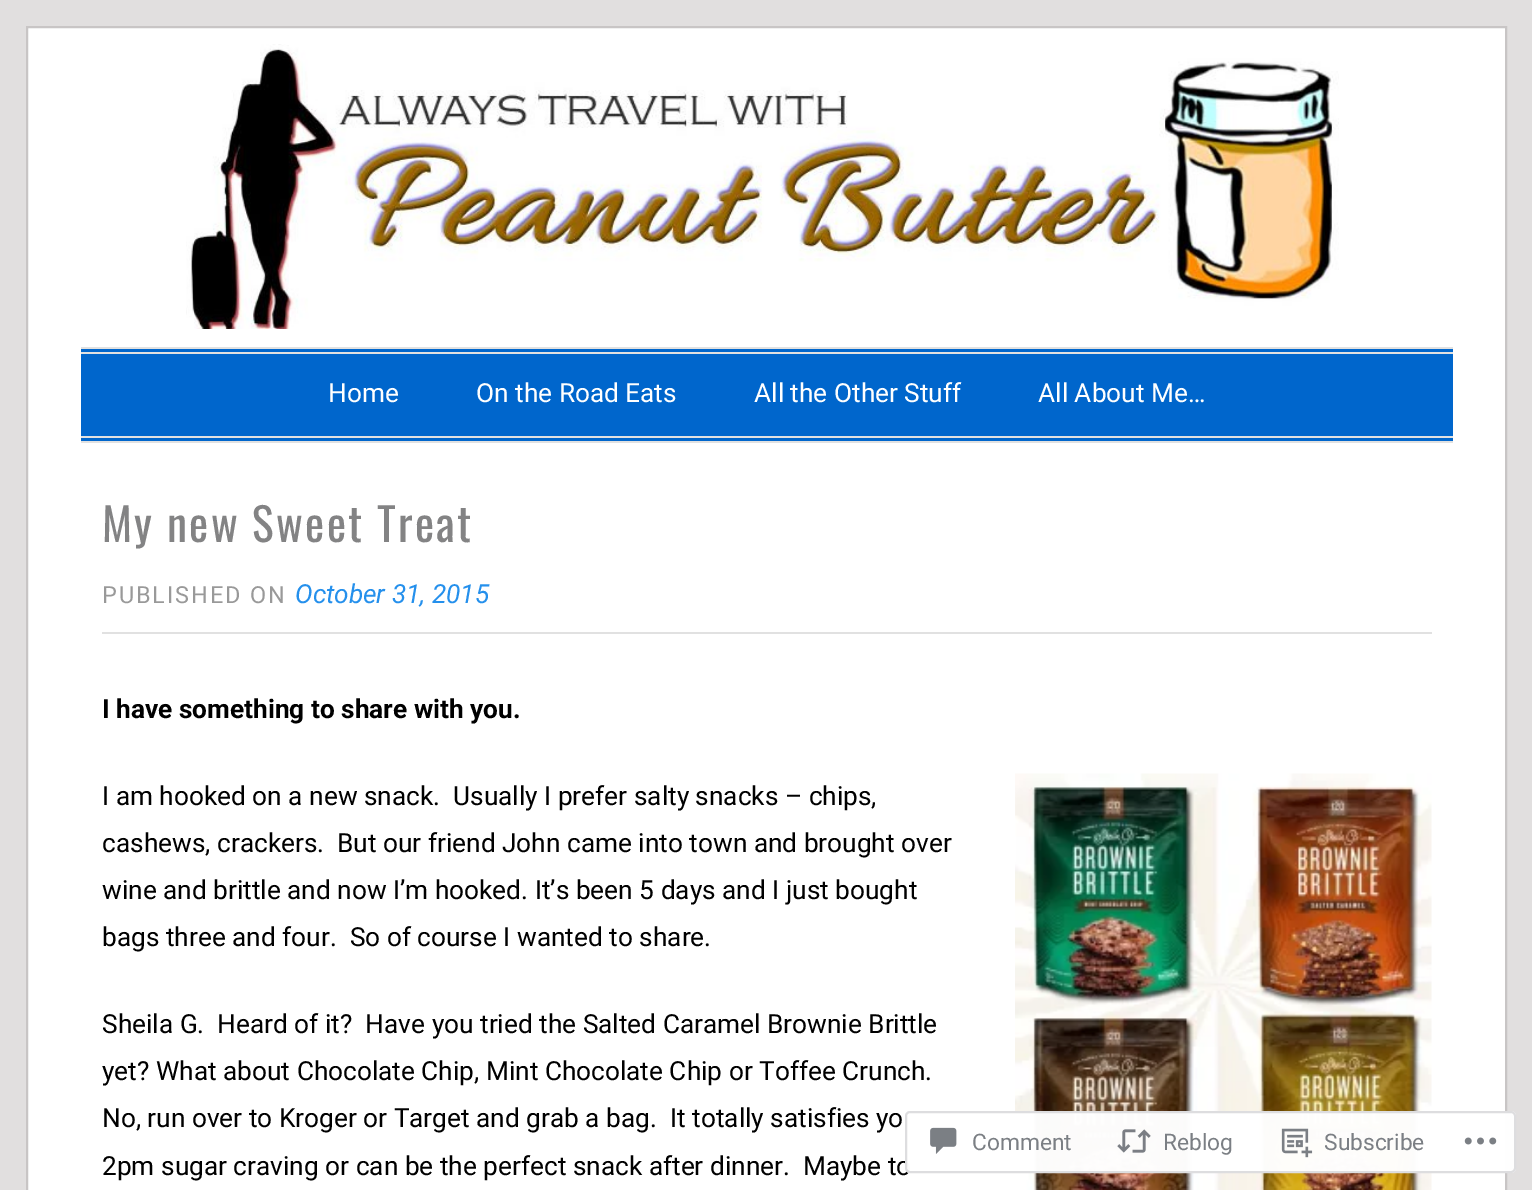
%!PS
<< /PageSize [1532 1190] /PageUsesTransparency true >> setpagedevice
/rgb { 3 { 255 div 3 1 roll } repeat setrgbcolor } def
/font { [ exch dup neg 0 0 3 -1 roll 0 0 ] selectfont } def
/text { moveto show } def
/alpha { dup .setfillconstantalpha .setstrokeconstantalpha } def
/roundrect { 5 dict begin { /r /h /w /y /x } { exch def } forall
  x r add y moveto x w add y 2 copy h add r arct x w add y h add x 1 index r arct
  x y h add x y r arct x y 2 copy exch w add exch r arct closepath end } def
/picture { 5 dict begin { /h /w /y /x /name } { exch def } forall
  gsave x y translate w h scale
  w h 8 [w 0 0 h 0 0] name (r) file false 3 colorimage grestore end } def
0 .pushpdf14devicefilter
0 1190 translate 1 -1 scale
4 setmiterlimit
225 223 223 rgb
0 0 1532 1190 rectfill
255 255 255 rgb
27 27 moveto 1479 0 rlineto 0 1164 rlineto -1479 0 rlineto closepath gsave fill grestore
200 197 197 rgb
2 setlinewidth
stroke
(img_01.rgb) 186 44 1153 285 picture
0 102 204 rgb
81 349 1372 92 rectfill
225 225 225 rgb
81 347 1372 2 rectfill
81 352 1372 2 rectfill
81 436 1372 2 rectfill
81 441 1372 2 rectfill
102 632 1330 2 rectfill
(img_02.rgb) 1015 773 417 417 picture
/Roboto-Regular 26.25 font
255 255 255 rgb
(Home) 328 402 text
(On the Road Eats) 476 402 text
(All the Other Stuff) 754 402 text
(All About Me…) 1038 402 text
/Oswald-Regular 45.5 font
131 131 132 rgb
102 542 moveto 2.25 0 (My new Sweet Treat) ashow
/Roboto-Regular 23.5 font
153 153 153 rgb
102 603 moveto 1.9 0 (PUBLISHED ON) ashow
/Roboto-Italic 26.25 font
37 144 236 rgb
(October 31, 2015) 295 603 text
/Roboto-Bold 26.25 font
0 0 0 rgb
(I have something to share with you.) 102 718 text
/Roboto-Regular 26.25 font
(I am hooked on a new snack.  Usually I prefer salty snacks – chips,) 102 805 text
(cashews, crackers.  But our friend John came into town and brought over) 102 852 text
(wine and brittle and now I’m hooked. It’s been 5 days and I just bought) 102 899 text
(bags three and four.  So of course I wanted to share.) 102 946 text
(Sheila G.  Heard of it?  Have you tried the Salted Caramel Brownie Brittle) 102 1033 text
(yet? What about Chocolate Chip, Mint Chocolate Chip or Toffee Crunch.) 102 1080 text
(No, run over to Kroger or Target and grab a bag.  It totally satisfies yo) 102 1127 text
(2pm sugar craving or can be the perfect snack after dinner.  Maybe to) 102 1175 text
0.98 alpha
255 255 255 rgb
905 1111 611 62 5 roundrect fill
220 220 222 rgb
906 1112 609 60 4 roundrect stroke
1 alpha
(img_03.rgb) 930 1127 27 27 picture
/Roboto-Regular 22.75 font
123 127 132 rgb
(Comment) 972 1150 text
(img_04.rgb) 1117 1129 34 24 picture
(Reblog) 1163 1150 text
(img_05.rgb) 1281 1128 32 30 picture
(Subscribe) 1324 1150 text
(img_06.rgb) 1464 1137 33 8 picture
.poppdf14devicefilter showpage
